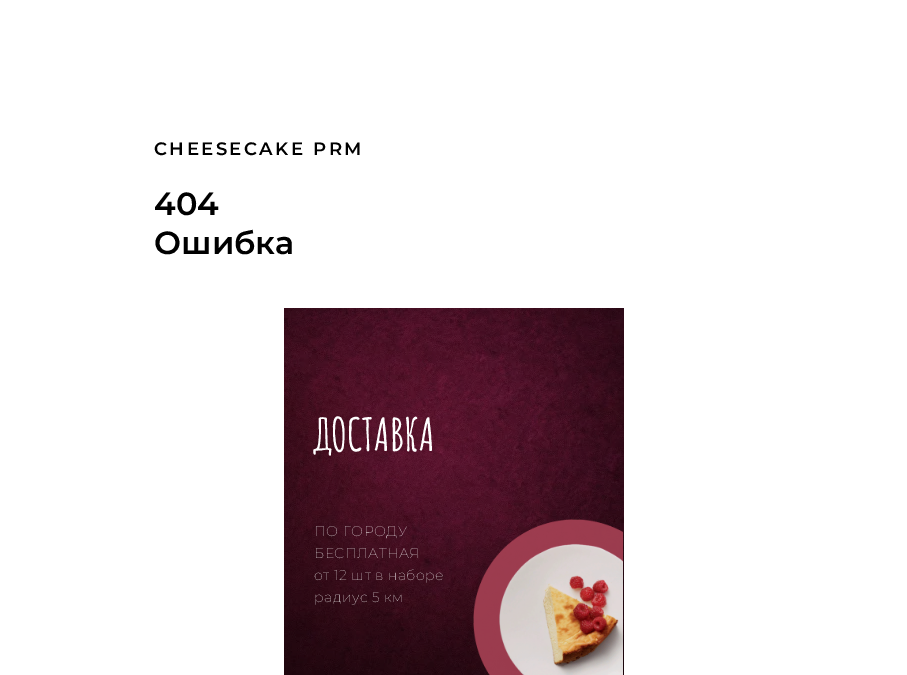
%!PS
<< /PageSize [907 675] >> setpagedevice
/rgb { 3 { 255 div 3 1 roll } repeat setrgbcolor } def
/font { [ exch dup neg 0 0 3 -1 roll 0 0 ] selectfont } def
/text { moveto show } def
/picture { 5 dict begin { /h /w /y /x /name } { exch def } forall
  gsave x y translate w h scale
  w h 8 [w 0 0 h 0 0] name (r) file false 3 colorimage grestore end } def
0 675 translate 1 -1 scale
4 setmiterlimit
255 255 255 rgb
0 0 907 675 rectfill
(img_01.rgb) 284 308 340 367 picture
(img_02.rgb) 473 519 150 156 picture
/Montserrat-SemiBold 18 font
0 0 0 rgb
154 155 moveto 2.5 0 (CHEESECAKE PRM) ashow
/Montserrat-SemiBold 32 font
(404) 154 215 text
(Ошибка) 154 254 text
/AmaticSC-Bold 45 font
255 255 255 rgb
(ДОСТАВКА) 314 451 text
/Montserrat-Thin 14 font
314 536 moveto 0.5 0 (ПО ГОРОДУ) ashow
314 558 moveto 0.5 0 (БЕСПЛАТНАЯ) ashow
314 580 moveto 0.5 0 (от 12 шт в наборе) ashow
314 602 moveto 0.5 0 (радиус 5 км) ashow
showpage
